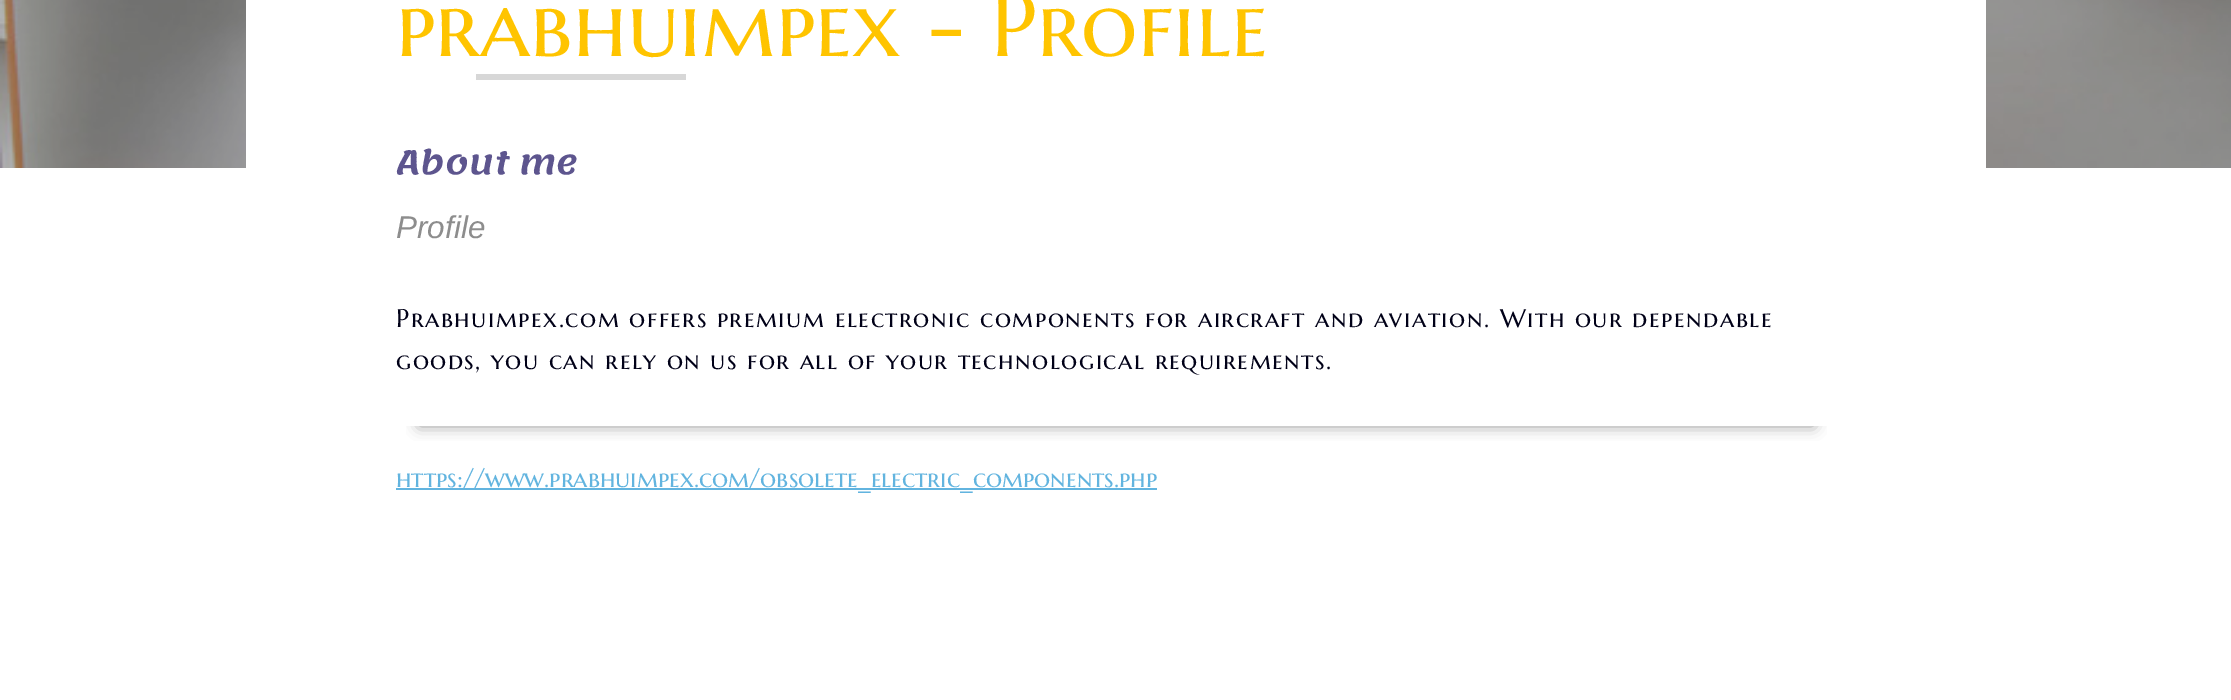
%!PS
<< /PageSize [2231 700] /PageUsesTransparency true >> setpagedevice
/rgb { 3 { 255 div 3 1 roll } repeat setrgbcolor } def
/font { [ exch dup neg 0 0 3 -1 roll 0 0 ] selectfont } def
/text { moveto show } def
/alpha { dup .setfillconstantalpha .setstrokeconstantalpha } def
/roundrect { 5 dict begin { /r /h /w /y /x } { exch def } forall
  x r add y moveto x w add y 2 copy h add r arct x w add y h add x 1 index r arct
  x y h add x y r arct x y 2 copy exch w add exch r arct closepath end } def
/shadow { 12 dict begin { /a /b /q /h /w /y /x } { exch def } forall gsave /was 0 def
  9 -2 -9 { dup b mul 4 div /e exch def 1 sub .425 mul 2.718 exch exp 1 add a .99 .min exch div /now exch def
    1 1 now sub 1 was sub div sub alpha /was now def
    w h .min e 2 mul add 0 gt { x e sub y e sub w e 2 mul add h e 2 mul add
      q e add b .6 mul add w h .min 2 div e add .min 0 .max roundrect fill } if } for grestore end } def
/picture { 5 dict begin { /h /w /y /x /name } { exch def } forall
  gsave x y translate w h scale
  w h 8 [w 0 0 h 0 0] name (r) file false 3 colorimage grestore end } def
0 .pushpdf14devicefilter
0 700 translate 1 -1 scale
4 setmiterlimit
255 255 255 rgb
0 0 2231 700 rectfill
(img_01.rgb) 0 0 2231 168 picture
246 0 1740 168 rectfill
215 215 215 rgb
476 74 210 6 rectfill
gsave
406 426 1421 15 rectclip
153 153 153 rgb
419 297 1395 129 0 7.5 1 shadow
grestore
98 180 223 rgb
396 488 761 2 rectfill
/MarcellusSC-Regular 89.25 font
255 196 0 rgb
(prabhuimpex - Profile) 396 56 text
/Lemonada-SemiBold 33 font
93 85 142 rgb
(About me) 396 174 text
/LiberationSans-Italic 31.5 font
141 141 141 rgb
(Profile) 396 238 text
/MarcellusSC-Regular 25.5 font
1 1 24 rgb
396 327 moveto 1.5 0 (Prabhuimpex.com offers premium electronic components for aircraft and aviation. With our dependable) ashow
396 369 moveto 1.5 0 (goods, you can rely on us for all of your technological requirements.) ashow
98 180 223 rgb
(https://www.prabhuimpex.com/obsolete_electric_components.php) 396 487 text
.poppdf14devicefilter showpage
